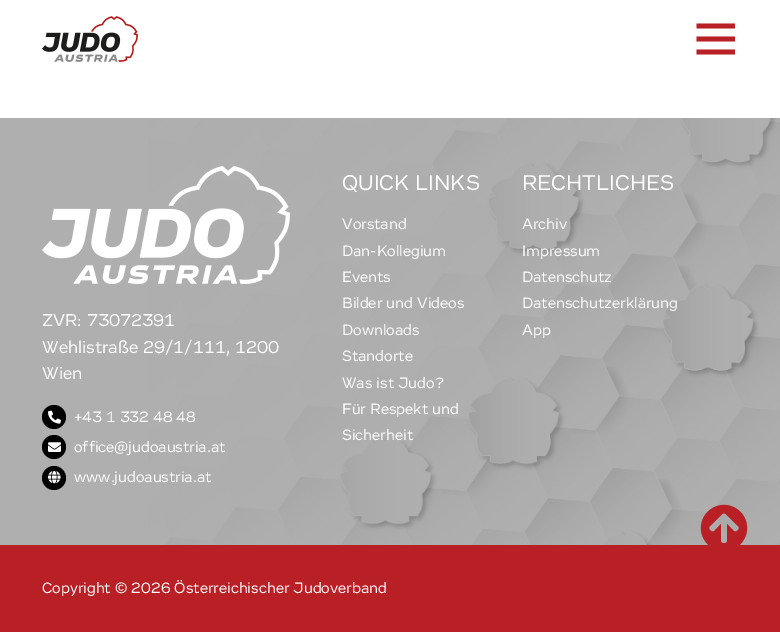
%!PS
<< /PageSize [780 632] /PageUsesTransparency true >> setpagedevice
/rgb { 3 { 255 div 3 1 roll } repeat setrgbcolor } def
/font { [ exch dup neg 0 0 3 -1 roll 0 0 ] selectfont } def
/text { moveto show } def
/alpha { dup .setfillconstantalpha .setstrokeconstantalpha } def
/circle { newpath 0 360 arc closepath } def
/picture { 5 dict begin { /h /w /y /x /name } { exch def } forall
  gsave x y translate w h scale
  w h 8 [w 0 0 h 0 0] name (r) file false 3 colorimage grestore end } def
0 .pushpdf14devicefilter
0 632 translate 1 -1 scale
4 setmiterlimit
255 255 255 rgb
0 0 780 632 rectfill
(img_01.rgb) 42 16 96 46 picture
184 32 37 rgb
4.8 setlinewidth
696.5 26 moveto 38.5 0 rlineto 696.5 39 moveto 38.5 0 rlineto 696.5 52 moveto 38.5 0 rlineto stroke
(img_02.rgb) 148 118 632 427 picture
0.4 alpha
55 55 55 rgb
0 118 780 427 rectfill
1 alpha
(img_03.rgb) 42 166 248 118 picture
0 0 0 rgb
54 417 12 circle fill
(img_04.rgb) 48 410 13 14 picture
54 447 12 circle fill
(img_05.rgb) 48 442 13 10 picture
54 478 12 circle fill
(img_06.rgb) 48 470 13 14 picture
184 32 37 rgb
0 545 780 87 rectfill
(img_07.rgb) 700 504 48 41 picture
/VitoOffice-Regular 22 font
255 255 255 rgb
(QUICK LINKS) 342 190 text
/VitoOffice-Regular 15.4 font
(Vorstand) 342 229 text
(Dan-Kollegium) 342 256 text
(Events) 342 282 text
(Bilder und Videos) 342 308 text
(Downloads) 342 335 text
(Standorte) 342 361 text
(Was ist Judo?) 342 388 text
(Für Respekt und) 342 414 text
(Sicherheit) 342 440 text
/VitoOffice-Regular 22 font
(RECHTLICHES) 522 190 text
/VitoOffice-Regular 15.4 font
(Archiv) 522 229 text
(Impressum) 522 256 text
(Datenschutz) 522 282 text
(Datenschutzerklärung) 522 308 text
(App) 522 335 text
/VitoOffice-Regular 17.6 font
(ZVR: 73072391) 42 326 text
(Wehlistraße 29/1/111, 1200) 42 353 text
(Wien) 42 379 text
/VitoOffice-Regular 15.4 font
(+43 1 332 48 48) 74 422 text
(office@judoaustria.at) 74 452 text
(www.judoaustria.at) 74 482 text
(Copyright © 2026 Österreichischer Judoverband) 42 593 text
.poppdf14devicefilter showpage
